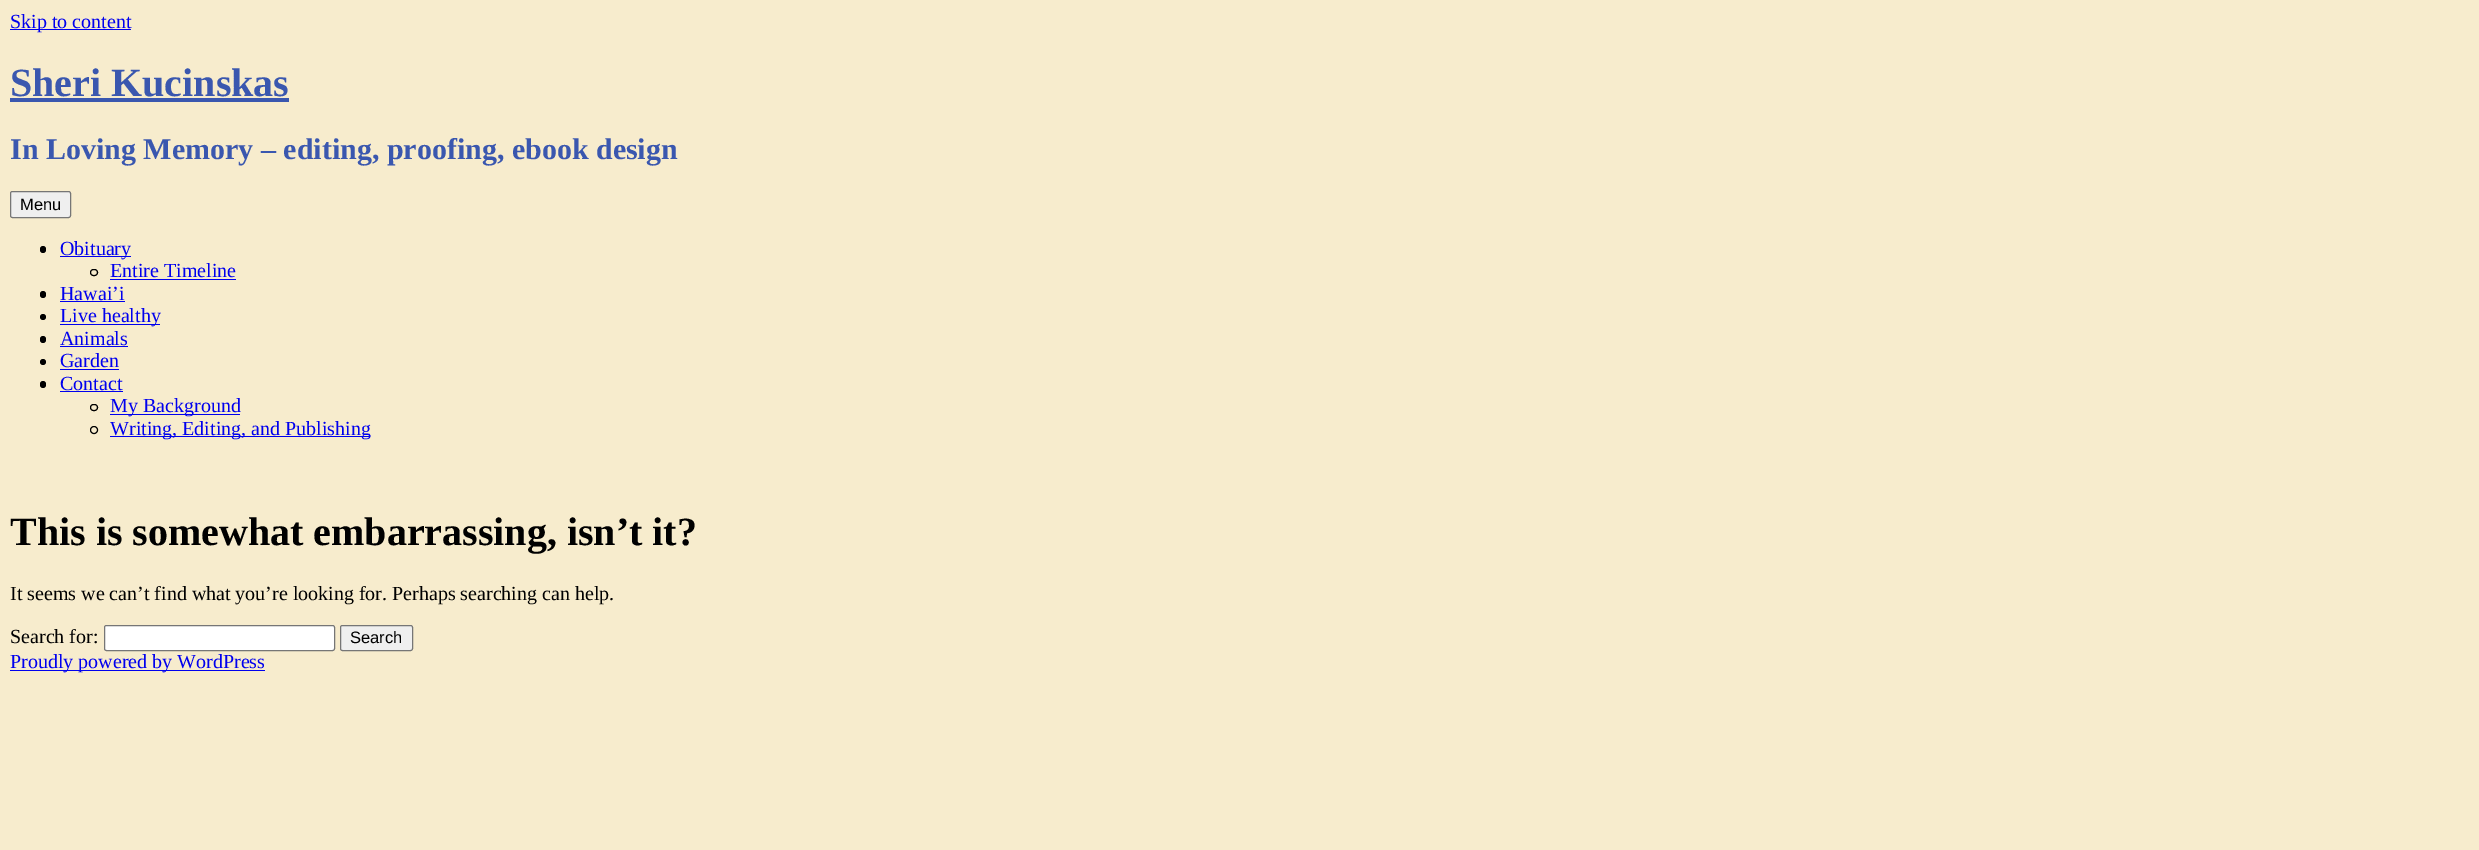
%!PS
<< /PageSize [2479 850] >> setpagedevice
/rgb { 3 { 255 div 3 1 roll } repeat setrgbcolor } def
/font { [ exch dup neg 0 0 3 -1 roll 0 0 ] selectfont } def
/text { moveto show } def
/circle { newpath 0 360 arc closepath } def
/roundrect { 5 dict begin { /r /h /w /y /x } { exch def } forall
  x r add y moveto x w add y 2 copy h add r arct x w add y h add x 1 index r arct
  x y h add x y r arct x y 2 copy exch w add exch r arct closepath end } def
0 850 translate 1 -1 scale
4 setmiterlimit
247 236 205 rgb
0 0 2479 850 rectfill
0 0 238 rgb
10 29 121 1 rectfill
58 87 175 rgb
10 98 279 4 rectfill
239 239 239 rgb
10.5 191.5 60 26 2 roundrect gsave fill grestore
118 118 118 rgb
stroke
0 0 0 rgb
40 246 6 7 3 roundrect fill
0 0 238 rgb
60 256 71 1 rectfill
0 0 0 rgb
90.5 269.5 7 6 3 roundrect stroke
0 0 238 rgb
110 279 126 1 rectfill
0 0 0 rgb
40 291 6 7 3 roundrect fill
0 0 238 rgb
60 301 65 1 rectfill
0 0 0 rgb
43 317 3 circle fill
0 0 238 rgb
60 324 100 1 rectfill
0 0 0 rgb
40 336 6 7 3 roundrect fill
0 0 238 rgb
60 346 68 1 rectfill
0 0 0 rgb
43 362 3 circle fill
0 0 238 rgb
60 369 59 1 rectfill
0 0 0 rgb
40 381 6 7 3 roundrect fill
0 0 238 rgb
60 391 63 1 rectfill
0 0 0 rgb
90.5 404.5 7 6 3 roundrect stroke
0 0 238 rgb
110 414 130 1 rectfill
0 0 0 rgb
94 430 3.5 circle stroke
0 0 238 rgb
110 436 260 1 rectfill
255 255 255 rgb
104.5 625.5 230 25 2 roundrect gsave fill grestore
118 118 118 rgb
stroke
239 239 239 rgb
340.5 625.5 72 25 2 roundrect gsave fill grestore
118 118 118 rgb
stroke
0 0 238 rgb
10 670 255 1 rectfill
/LiberationSerif-Regular 20 font
(Skip to content) 10 28 text
/LiberationSerif-Bold 40 font
58 87 175 rgb
(Sheri Kucinskas) 10 96 text
/LiberationSerif-Bold 30 font
(In Loving Memory – editing, proofing, ebook design) 10 159 text
/LiberationSans-Regular 16.5 font
0 0 0 rgb
(Menu) 20 210 text
/LiberationSerif-Regular 20 font
0 0 238 rgb
(Obituary) 60 255 text
(Entire Timeline) 110 277 text
(Hawai’i) 60 300 text
(Live healthy) 60 322 text
(Animals) 60 345 text
(Garden) 60 367 text
(Contact) 60 390 text
(My Background) 110 412 text
(Writing, Editing, and Publishing) 110 435 text
/LiberationSerif-Bold 40 font
0 0 0 rgb
(This is somewhat embarrassing, isn’t it?) 10 545 text
/LiberationSerif-Regular 20 font
(It seems we can’t find what you’re looking for. Perhaps searching can help.) 10 600 text
(Search for:) 10 643 text
/LiberationSans-Regular 16.5 font
(Search) 350 643 text
/LiberationSerif-Regular 20 font
0 0 238 rgb
(Proudly powered by WordPress) 10 668 text
showpage
